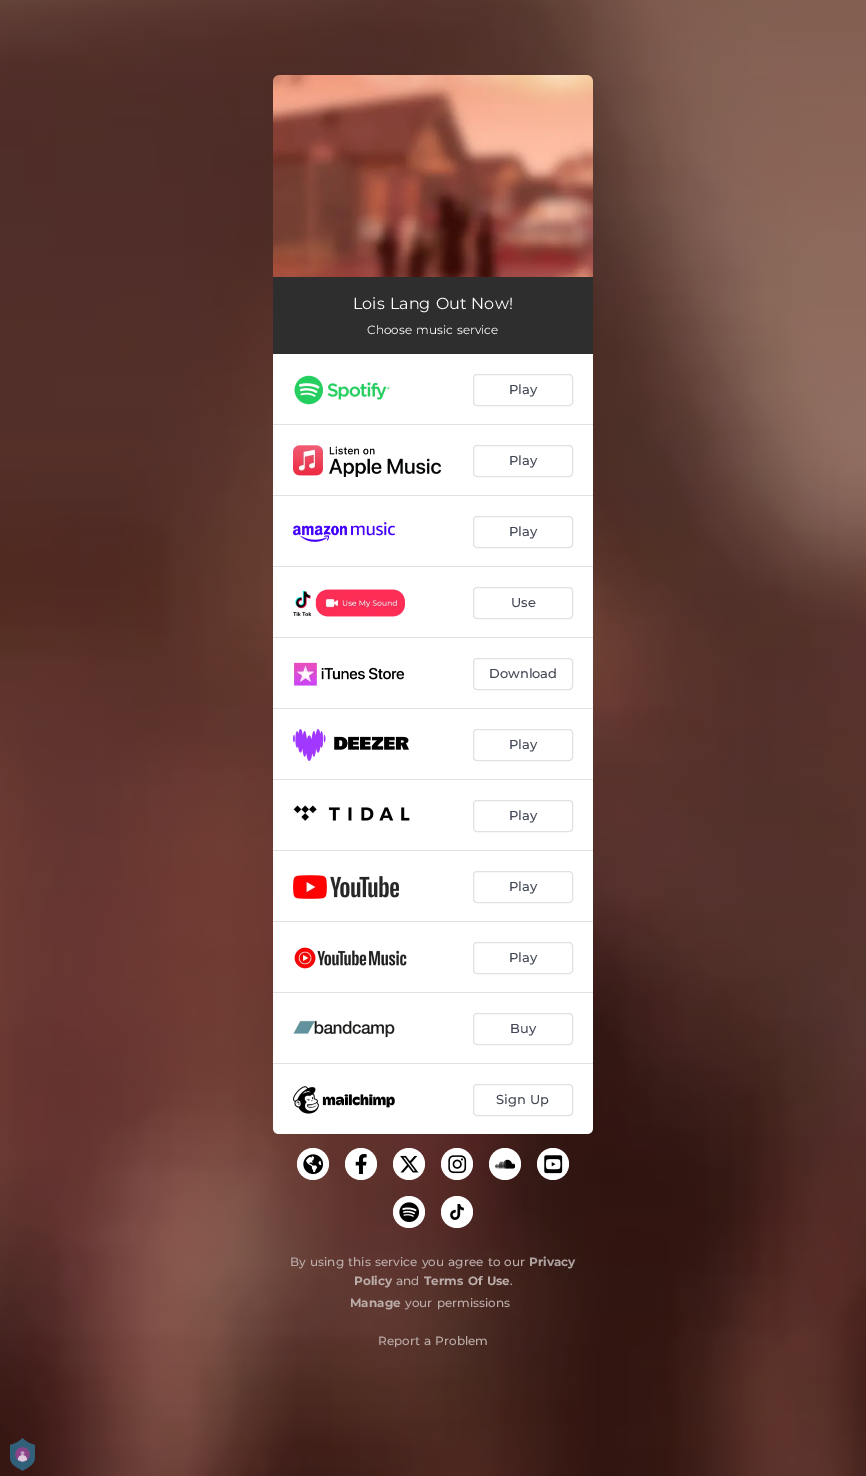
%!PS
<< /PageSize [866 1476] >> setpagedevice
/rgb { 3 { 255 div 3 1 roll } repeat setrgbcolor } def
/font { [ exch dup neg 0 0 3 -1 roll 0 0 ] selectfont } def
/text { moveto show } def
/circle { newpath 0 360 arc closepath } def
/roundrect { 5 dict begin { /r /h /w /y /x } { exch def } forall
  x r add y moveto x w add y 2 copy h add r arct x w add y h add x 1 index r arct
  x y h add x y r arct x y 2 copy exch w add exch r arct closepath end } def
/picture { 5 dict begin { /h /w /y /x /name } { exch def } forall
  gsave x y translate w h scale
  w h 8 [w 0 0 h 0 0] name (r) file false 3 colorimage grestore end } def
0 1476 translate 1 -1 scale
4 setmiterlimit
255 255 255 rgb
0 0 866 1476 rectfill
(img_01.rgb) 0 0 866 1476 picture
(img_02.rgb) 273 75 320 202 picture
46 46 46 rgb
273 277 320 77 rectfill
255 255 255 rgb
273 354 moveto 320 0 rlineto 0 774 rlineto 0 3.5 -2.5 6 -6 6 rcurveto -308 0 rlineto -3.5 0 -6 -2.5 -6 -6 rcurveto closepath fill
225 225 228 rgb
273 424 320 1 rectfill
(img_03.rgb) 294 375 96 30 picture
473.5 374.5 99 31 3.5 roundrect stroke
273 495 320 1 rectfill
(img_04.rgb) 293 445 148 32 picture
473.5 445.5 99 31 3.5 roundrect stroke
273 566 320 1 rectfill
(img_05.rgb) 293 522 102 20 picture
473.5 516.5 99 31 3.5 roundrect stroke
273 637 320 1 rectfill
(img_06.rgb) 293 589 112 28 picture
473.5 587.5 99 31 3.5 roundrect stroke
273 708 320 1 rectfill
(img_07.rgb) 294 662 111 24 picture
473.5 658.5 99 31 3.5 roundrect stroke
273 779 320 1 rectfill
(img_08.rgb) 293 729 116 32 picture
473.5 729.5 99 31 3.5 roundrect stroke
273 850 320 1 rectfill
(img_09.rgb) 293 805 117 16 picture
473.5 800.5 99 31 3.5 roundrect stroke
273 921 320 1 rectfill
(img_10.rgb) 293 875 106 24 picture
473.5 871.5 99 31 3.5 roundrect stroke
273 992 320 1 rectfill
(img_11.rgb) 294 947 113 22 picture
473.5 942.5 99 31 3.5 roundrect stroke
273 1063 320 1 rectfill
(img_12.rgb) 293 1020 102 18 picture
473.5 1013.5 99 31 3.5 roundrect stroke
(img_13.rgb) 293 1086 102 28 picture
473.5 1084.5 99 31 3.5 roundrect stroke
255 255 255 rgb
313 1164 16 circle fill
(img_14.rgb) 303 1154 20 20 picture
361 1164 16 circle fill
(img_15.rgb) 355 1154 12 20 picture
409 1164 16 circle fill
(img_16.rgb) 400 1155 19 18 picture
457 1164 16 circle fill
(img_17.rgb) 448 1155 19 19 picture
505 1164 16 circle fill
(img_18.rgb) 495 1159 20 10 picture
553 1164 16 circle fill
(img_19.rgb) 544 1155 19 19 picture
409 1212 16 circle fill
(img_20.rgb) 399 1202 20 20 picture
457 1212 16 circle fill
(img_21.rgb) 450 1204 14 16 picture
(img_22.rgb) 10 1438 25 33 picture
/Montserrat-Regular 16 font
353 309 moveto 1 0 32 (Lois Lang Out Now!) widthshow
/Montserrat-Regular 12 font
367 334 moveto 1 0 32 (Choose music service) widthshow
/Montserrat-Medium 13 font
65 71 84 rgb
(Play) 509 394 text
(Play) 509 465 text
(Play) 509 536 text
(Use) 511 607 text
(Download) 489 678 text
(Play) 509 749 text
(Play) 509 820 text
(Play) 509 891 text
(Play) 509 962 text
(Buy) 510 1033 text
496 1104 moveto 1 0 32 (Sign Up) widthshow
/Montserrat-Medium 12 font
188 173 170 rgb
290 1266 moveto 1 0 32 (By using this service you agree to our) widthshow
/Montserrat-Bold 12 font
175 164 162 rgb
(Privacy) 529 1266 text
188 173 170 rgb
(Policy) 354 1285 text
/Montserrat-Medium 12 font
(and) 396 1285 text
/Montserrat-Bold 12 font
424 1285 moveto 1 0 32 (Terms Of Use) widthshow
/Montserrat-Medium 12 font
175 164 162 rgb
(.) 510 1285 text
/Montserrat-Bold 12 font
188 173 170 rgb
(Manage) 350 1307 text
/Montserrat-Medium 12 font
405 1307 moveto 1 0 32 (your permissions) widthshow
378 1345 moveto 1 0 32 (Report a Problem) widthshow
showpage
